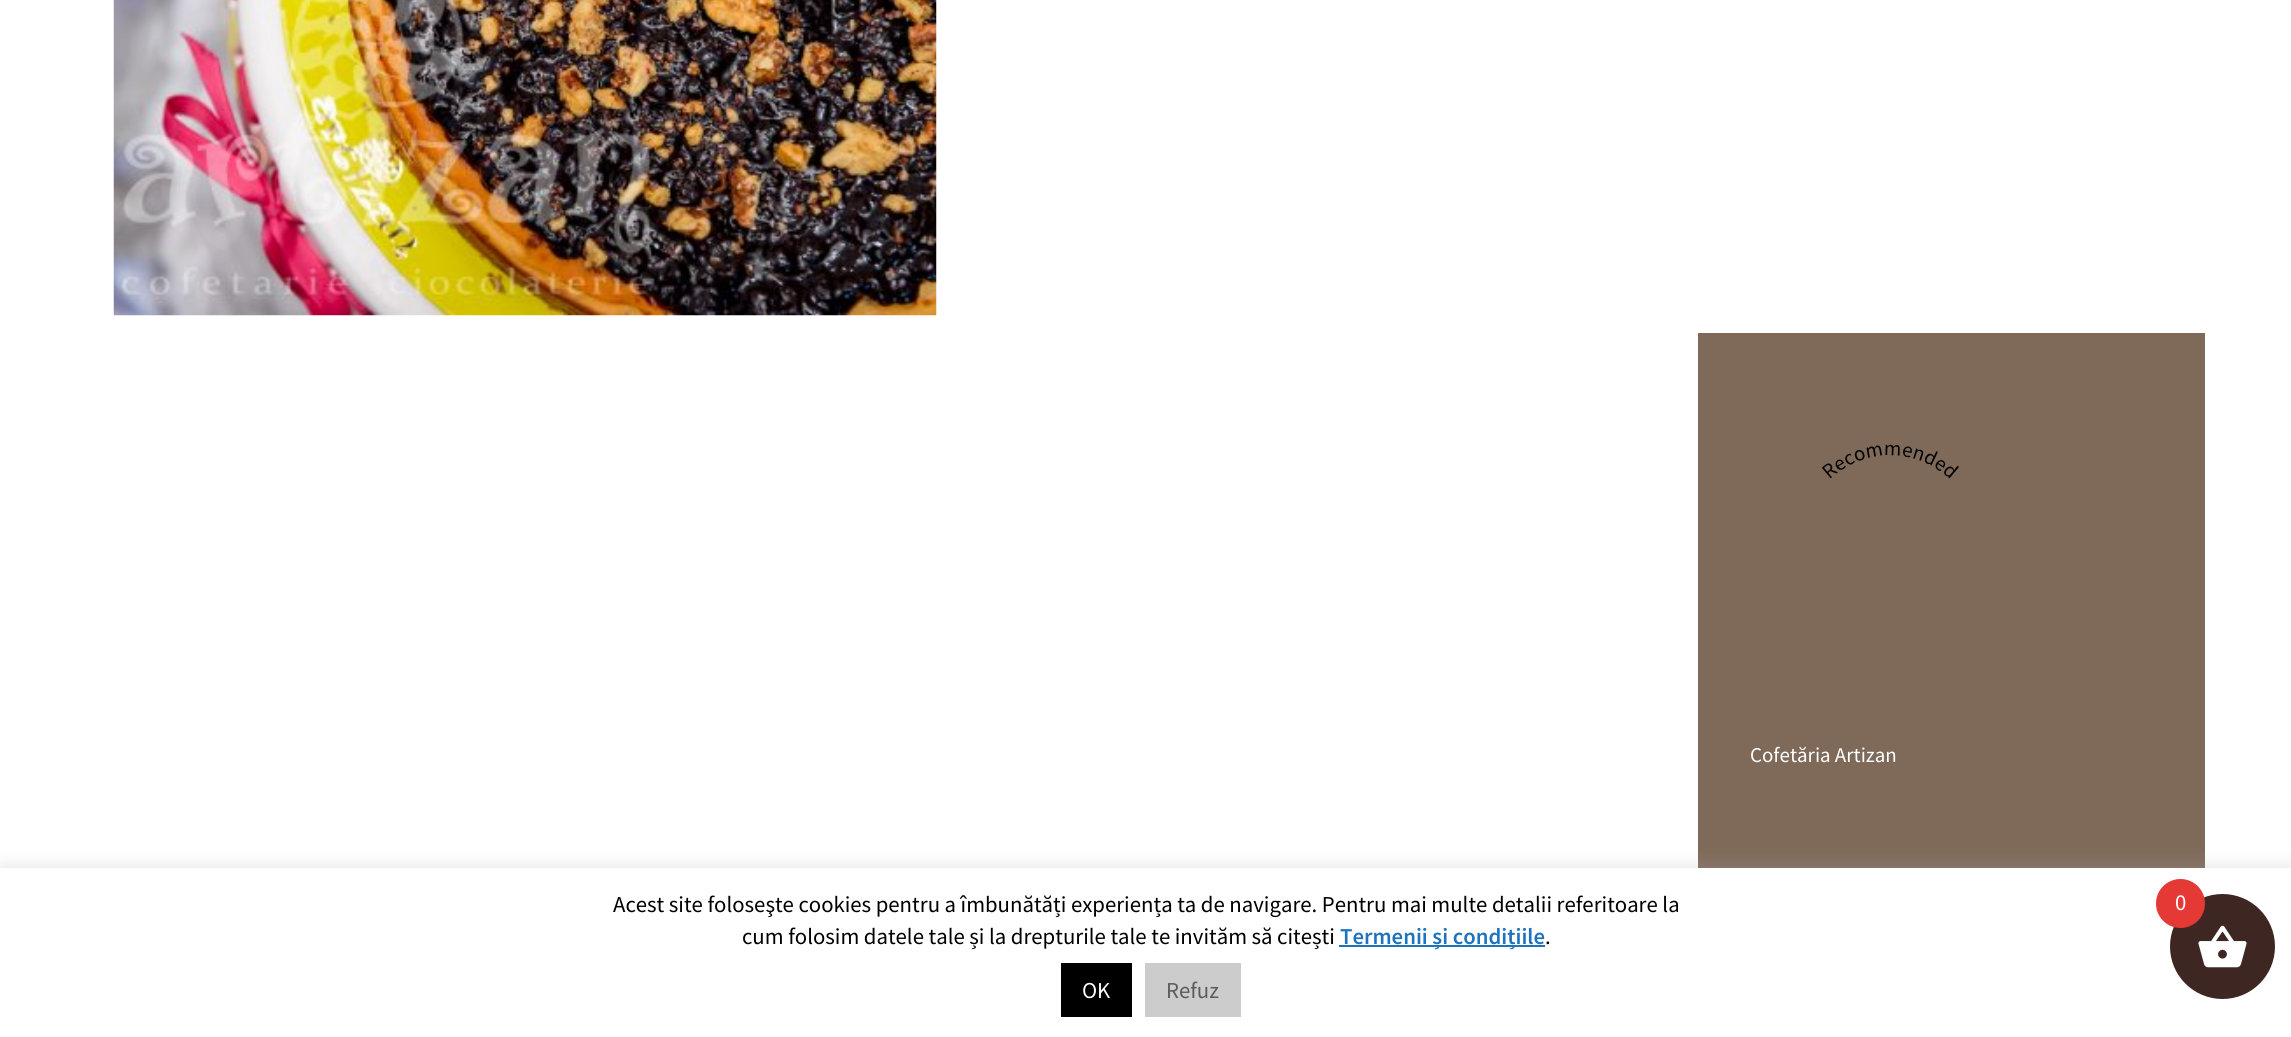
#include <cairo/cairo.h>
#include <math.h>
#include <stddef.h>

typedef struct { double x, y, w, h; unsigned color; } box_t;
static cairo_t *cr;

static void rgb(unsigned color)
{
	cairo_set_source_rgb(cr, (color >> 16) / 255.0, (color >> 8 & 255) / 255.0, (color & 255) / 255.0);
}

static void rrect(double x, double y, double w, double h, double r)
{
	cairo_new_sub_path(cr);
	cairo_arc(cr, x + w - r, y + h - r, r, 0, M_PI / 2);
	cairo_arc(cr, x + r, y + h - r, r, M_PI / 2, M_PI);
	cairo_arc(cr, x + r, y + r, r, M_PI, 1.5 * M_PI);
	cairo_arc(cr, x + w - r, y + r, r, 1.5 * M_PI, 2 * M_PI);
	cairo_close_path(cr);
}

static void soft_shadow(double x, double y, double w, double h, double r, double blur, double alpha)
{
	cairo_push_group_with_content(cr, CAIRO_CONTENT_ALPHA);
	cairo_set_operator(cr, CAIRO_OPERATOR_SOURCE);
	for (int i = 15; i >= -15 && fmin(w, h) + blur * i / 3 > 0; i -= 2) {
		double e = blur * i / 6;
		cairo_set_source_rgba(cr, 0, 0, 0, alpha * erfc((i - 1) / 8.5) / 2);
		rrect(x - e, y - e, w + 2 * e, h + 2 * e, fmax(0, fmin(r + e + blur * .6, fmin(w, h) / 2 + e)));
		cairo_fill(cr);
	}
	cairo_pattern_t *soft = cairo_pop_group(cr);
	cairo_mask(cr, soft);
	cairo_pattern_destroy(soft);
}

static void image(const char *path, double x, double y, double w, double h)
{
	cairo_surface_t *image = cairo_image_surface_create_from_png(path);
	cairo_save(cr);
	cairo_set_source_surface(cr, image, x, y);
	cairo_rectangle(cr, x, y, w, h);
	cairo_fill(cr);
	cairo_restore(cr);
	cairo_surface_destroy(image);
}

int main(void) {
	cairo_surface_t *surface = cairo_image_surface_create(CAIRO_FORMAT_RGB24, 2291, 1037);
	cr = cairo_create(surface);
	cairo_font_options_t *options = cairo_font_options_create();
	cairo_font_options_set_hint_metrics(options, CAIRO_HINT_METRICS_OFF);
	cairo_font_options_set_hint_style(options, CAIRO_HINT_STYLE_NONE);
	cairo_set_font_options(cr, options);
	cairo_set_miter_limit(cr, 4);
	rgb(0xffffff);
	cairo_paint(cr);
	rgb(0x7f6a5a);
	cairo_rectangle(cr, 1698, 333, 507, 535);
	cairo_fill(cr);
	image("img/1.png", 113, 0, 824, 316);
	image("img/2.png", 1822, 444, 137, 35);
	rgb(0xacabab);
	soft_shadow(0, 866, 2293, 170, 0, 9, 0.3);
	{
		static const box_t items[] = {
			{0, 868, 2291, 169, 0xffffff},
			{1339, 945, 206, 2, 0x1e73be},
			{1061, 963, 71, 54, 0x000000},
			{1145, 963, 96, 54, 0xcccccc},
		};
		for (size_t i = 0; i < sizeof items / sizeof *items; i++) {
			rgb(items[i].color);
			cairo_rectangle(cr, items[i].x, items[i].y, items[i].w, items[i].h);
			cairo_fill(cr);
		}
	}
	rgb(0x3e2723);
	cairo_arc(cr, 2222.5, 946.5, 52.5, 0, 2 * M_PI);
	cairo_fill(cr);
	image("img/3.png", 2198, 925, 49, 43);
	rgb(0xe53935);
	cairo_arc(cr, 2180.5, 903.5, 24.5, 0, 2 * M_PI);
	cairo_fill(cr);
	cairo_select_font_face(cr, "Source Sans Pro", CAIRO_FONT_SLANT_NORMAL, CAIRO_FONT_WEIGHT_NORMAL);
	cairo_set_font_size(cr, 21);
	rgb(0xffffff);
	cairo_move_to(cr, 1750, 762);
	cairo_show_text(cr, "Cofetăria Artizan");
	cairo_set_font_size(cr, 22.75);
	rgb(0x000000);
	cairo_move_to(cr, 613, 912);
	cairo_show_text(cr, "Acest site foloseşte cookies pentru a îmbunătăți experiența ta de navigare. Pentru mai multe detalii referitoare la");
	cairo_move_to(cr, 742, 944);
	cairo_show_text(cr, "cum folosim datele tale și la drepturile tale te invităm să citești");
	cairo_select_font_face(cr, "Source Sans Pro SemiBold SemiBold", CAIRO_FONT_SLANT_NORMAL, CAIRO_FONT_WEIGHT_NORMAL);
	rgb(0x1e73be);
	cairo_move_to(cr, 1340, 944);
	cairo_show_text(cr, "Termenii și condițiile");
	cairo_select_font_face(cr, "Source Sans Pro", CAIRO_FONT_SLANT_NORMAL, CAIRO_FONT_WEIGHT_NORMAL);
	rgb(0x000000);
	cairo_move_to(cr, 1545, 944);
	cairo_show_text(cr, ".");
	rgb(0xffffff);
	cairo_move_to(cr, 1082, 998);
	cairo_show_text(cr, "OK");
	rgb(0x5b5b5b);
	cairo_move_to(cr, 1166, 998);
	cairo_show_text(cr, "Refuz");
	rgb(0xffffff);
	cairo_move_to(cr, 2175, 910);
	cairo_show_text(cr, "0");
	cairo_surface_write_to_png(surface, "page.png");
	cairo_font_options_destroy(options);
	cairo_destroy(cr);
	cairo_surface_destroy(surface);
	return 0;
}
